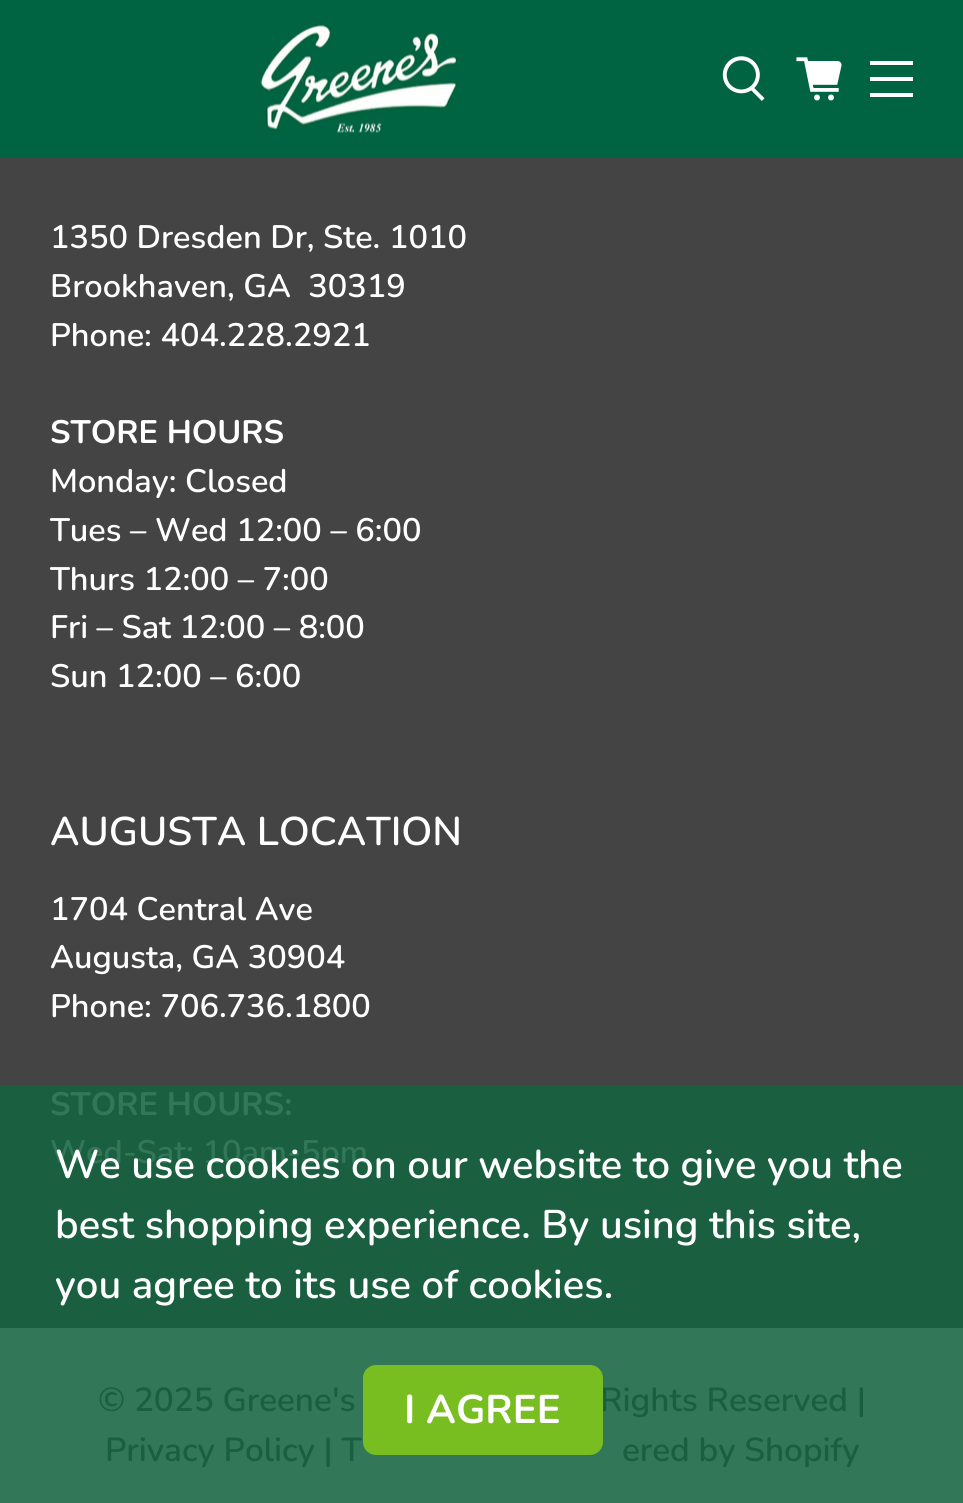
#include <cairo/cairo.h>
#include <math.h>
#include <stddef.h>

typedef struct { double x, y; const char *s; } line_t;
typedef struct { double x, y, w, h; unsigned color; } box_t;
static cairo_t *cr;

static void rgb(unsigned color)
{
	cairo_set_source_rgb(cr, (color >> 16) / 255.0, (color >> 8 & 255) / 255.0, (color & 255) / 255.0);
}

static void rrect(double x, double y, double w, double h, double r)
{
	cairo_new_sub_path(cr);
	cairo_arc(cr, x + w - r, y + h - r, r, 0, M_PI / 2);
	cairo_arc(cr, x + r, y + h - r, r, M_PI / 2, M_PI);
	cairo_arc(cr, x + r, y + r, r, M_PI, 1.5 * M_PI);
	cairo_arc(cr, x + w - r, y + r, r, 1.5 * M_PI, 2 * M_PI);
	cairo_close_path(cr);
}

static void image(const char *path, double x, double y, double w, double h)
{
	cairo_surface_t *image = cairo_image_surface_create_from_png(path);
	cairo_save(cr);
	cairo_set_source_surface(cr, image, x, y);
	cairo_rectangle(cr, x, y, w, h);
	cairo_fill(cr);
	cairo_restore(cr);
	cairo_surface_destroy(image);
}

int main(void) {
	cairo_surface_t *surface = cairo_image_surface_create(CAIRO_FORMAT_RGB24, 963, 1503);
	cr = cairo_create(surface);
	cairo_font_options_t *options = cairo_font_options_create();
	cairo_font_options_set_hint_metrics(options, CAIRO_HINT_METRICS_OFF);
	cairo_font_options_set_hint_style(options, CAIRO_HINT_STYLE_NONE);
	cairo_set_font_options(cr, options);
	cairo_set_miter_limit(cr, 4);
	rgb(0x317758);
	cairo_paint(cr);
	rgb(0x006341);
	cairo_rectangle(cr, 0, 0, 963, 158);
	cairo_fill(cr);
	image("img/1.png", 260, 24, 199, 109);
	image("img/2.png", 722, 56, 43, 45);
	image("img/3.png", 796, 57, 46, 44);
	{
		static const box_t items[] = {
			{870, 61, 43, 4, 0xffffff},
			{870, 77, 43, 4, 0xffffff},
			{870, 93, 43, 4, 0xffffff},
			{0, 158, 963, 927, 0x444444},
			{0, 1085, 963, 243, 0x195f40},
		};
		for (size_t i = 0; i < sizeof items / sizeof *items; i++) {
			rgb(items[i].color);
			cairo_rectangle(cr, items[i].x, items[i].y, items[i].w, items[i].h);
			cairo_fill(cr);
		}
	}
	cairo_select_font_face(cr, "Nunito SemiBold", CAIRO_FONT_SLANT_NORMAL, CAIRO_FONT_WEIGHT_NORMAL);
	cairo_set_font_size(cr, 32.5);
	rgb(0xffffff);
	{
		static const line_t items[] = {
			{50, 248, "1350 Dresden Dr, Ste. 1010"},
			{50, 297, "Brookhaven, GA  30319"},
			{50, 346, "Phone: 404.228.2921"},
		};
		for (size_t i = 0; i < sizeof items / sizeof *items; i++) {
			cairo_move_to(cr, items[i].x, items[i].y);
			cairo_show_text(cr, items[i].s);
		}
	}
	cairo_select_font_face(cr, "Nunito", CAIRO_FONT_SLANT_NORMAL, CAIRO_FONT_WEIGHT_BOLD);
	cairo_move_to(cr, 50, 443);
	cairo_show_text(cr, "STORE HOURS");
	cairo_select_font_face(cr, "Nunito SemiBold", CAIRO_FONT_SLANT_NORMAL, CAIRO_FONT_WEIGHT_NORMAL);
	{
		static const line_t items[] = {
			{50, 492, "Monday: Closed"},
			{50, 541, "Tues – Wed 12:00 – 6:00"},
			{50, 590, "Thurs 12:00 – 7:00"},
			{50, 638, "Fri – Sat 12:00 – 8:00"},
			{50, 687, "Sun 12:00 – 6:00"},
		};
		for (size_t i = 0; i < sizeof items / sizeof *items; i++) {
			cairo_move_to(cr, items[i].x, items[i].y);
			cairo_show_text(cr, items[i].s);
		}
	}
	cairo_set_font_size(cr, 40);
	cairo_move_to(cr, 50, 845);
	cairo_show_text(cr, "AUGUSTA LOCATION");
	cairo_set_font_size(cr, 32.5);
	{
		static const line_t items[] = {
			{50, 920, "1704 Central Ave"},
			{50, 968, "Augusta, GA 30904"},
			{50, 1017, "Phone: 706.736.1800"},
		};
		for (size_t i = 0; i < sizeof items / sizeof *items; i++) {
			cairo_move_to(cr, items[i].x, items[i].y);
			cairo_show_text(cr, items[i].s);
		}
	}
	cairo_select_font_face(cr, "Nunito", CAIRO_FONT_SLANT_NORMAL, CAIRO_FONT_WEIGHT_BOLD);
	rgb(0x317758);
	cairo_move_to(cr, 50, 1115);
	cairo_show_text(cr, "STORE HOURS:");
	cairo_select_font_face(cr, "Nunito SemiBold", CAIRO_FONT_SLANT_NORMAL, CAIRO_FONT_WEIGHT_NORMAL);
	cairo_move_to(cr, 50, 1163);
	cairo_show_text(cr, "Wed-Sat: 10am-5pm");
	cairo_set_font_size(cr, 33.25);
	rgb(0x195f40);
	{
		static const line_t items[] = {
			{98, 1411, "© 2025 Greene's"},
			{600, 1411, "Rights Reserved |"},
			{105, 1461, "Privacy Policy | T"},
			{622, 1461, "ered by Shopify"},
		};
		for (size_t i = 0; i < sizeof items / sizeof *items; i++) {
			cairo_move_to(cr, items[i].x, items[i].y);
			cairo_show_text(cr, items[i].s);
		}
	}
	cairo_set_font_size(cr, 40);
	rgb(0xffffff);
	{
		static const line_t items[] = {
			{55, 1178, "We use cookies on our website to give you the"},
			{55, 1238, "best shopping experience. By using this site,"},
			{55, 1298, "you agree to its use of cookies."},
		};
		for (size_t i = 0; i < sizeof items / sizeof *items; i++) {
			cairo_move_to(cr, items[i].x, items[i].y);
			cairo_show_text(cr, items[i].s);
		}
	}
	rgb(0x78be20);
	rrect(363, 1365, 240, 90, 13);
	cairo_fill(cr);
	cairo_select_font_face(cr, "Nunito", CAIRO_FONT_SLANT_NORMAL, CAIRO_FONT_WEIGHT_BOLD);
	rgb(0xffffff);
	cairo_move_to(cr, 404, 1423);
	cairo_show_text(cr, "I AGREE");
	cairo_surface_write_to_png(surface, "page.png");
	cairo_font_options_destroy(options);
	cairo_destroy(cr);
	cairo_surface_destroy(surface);
	return 0;
}
